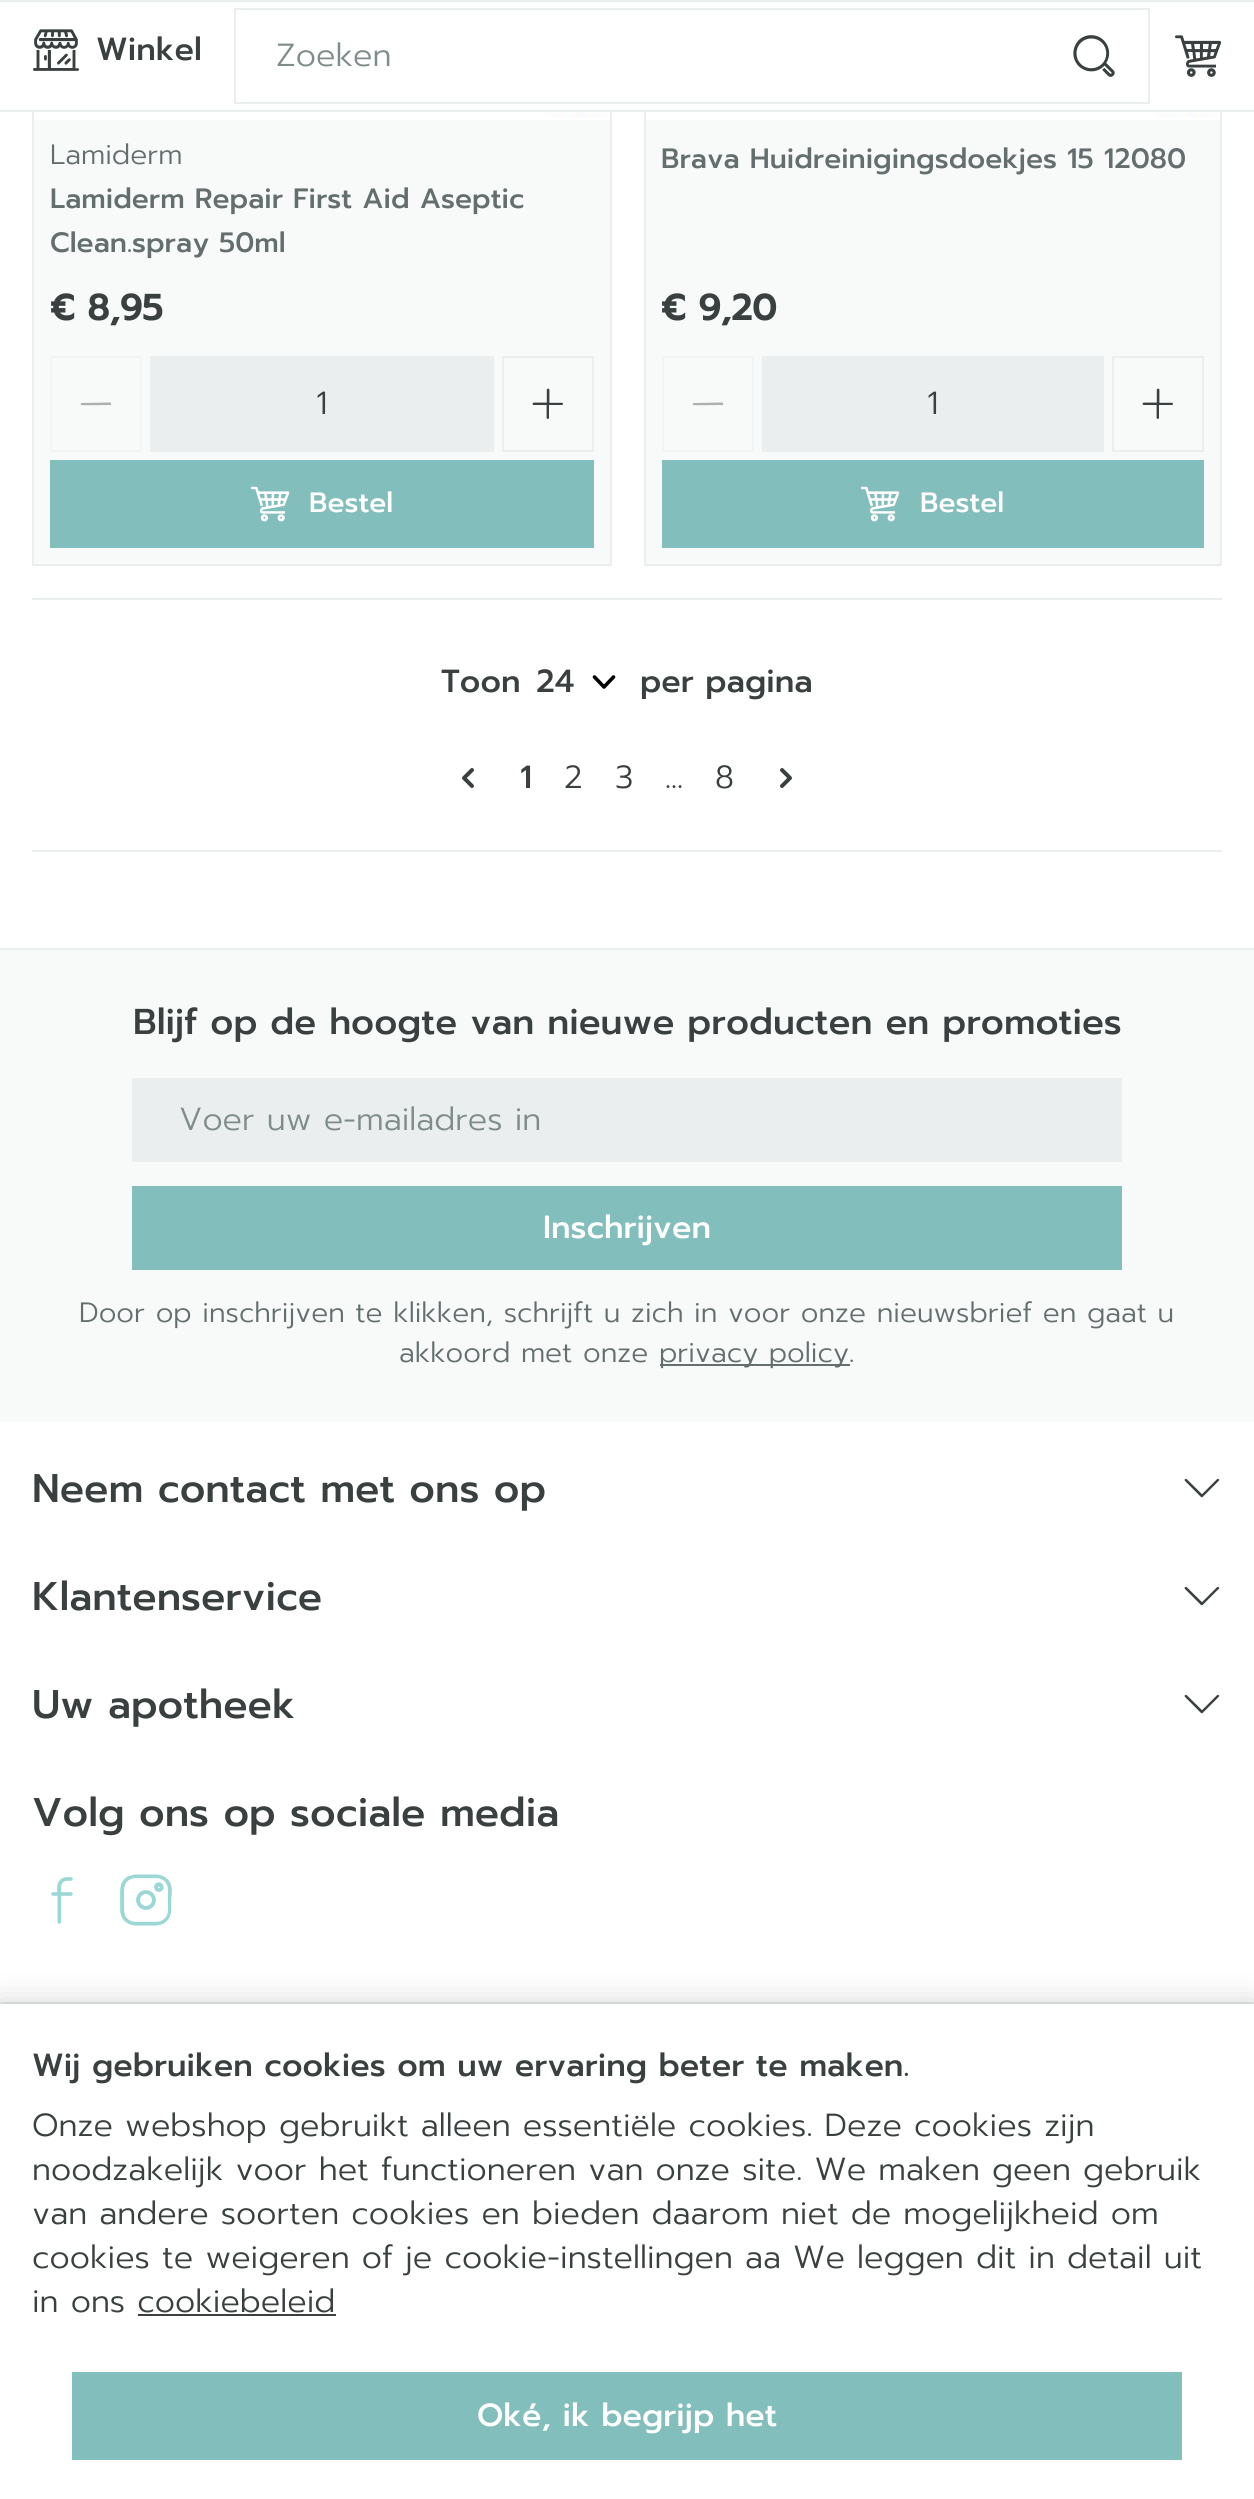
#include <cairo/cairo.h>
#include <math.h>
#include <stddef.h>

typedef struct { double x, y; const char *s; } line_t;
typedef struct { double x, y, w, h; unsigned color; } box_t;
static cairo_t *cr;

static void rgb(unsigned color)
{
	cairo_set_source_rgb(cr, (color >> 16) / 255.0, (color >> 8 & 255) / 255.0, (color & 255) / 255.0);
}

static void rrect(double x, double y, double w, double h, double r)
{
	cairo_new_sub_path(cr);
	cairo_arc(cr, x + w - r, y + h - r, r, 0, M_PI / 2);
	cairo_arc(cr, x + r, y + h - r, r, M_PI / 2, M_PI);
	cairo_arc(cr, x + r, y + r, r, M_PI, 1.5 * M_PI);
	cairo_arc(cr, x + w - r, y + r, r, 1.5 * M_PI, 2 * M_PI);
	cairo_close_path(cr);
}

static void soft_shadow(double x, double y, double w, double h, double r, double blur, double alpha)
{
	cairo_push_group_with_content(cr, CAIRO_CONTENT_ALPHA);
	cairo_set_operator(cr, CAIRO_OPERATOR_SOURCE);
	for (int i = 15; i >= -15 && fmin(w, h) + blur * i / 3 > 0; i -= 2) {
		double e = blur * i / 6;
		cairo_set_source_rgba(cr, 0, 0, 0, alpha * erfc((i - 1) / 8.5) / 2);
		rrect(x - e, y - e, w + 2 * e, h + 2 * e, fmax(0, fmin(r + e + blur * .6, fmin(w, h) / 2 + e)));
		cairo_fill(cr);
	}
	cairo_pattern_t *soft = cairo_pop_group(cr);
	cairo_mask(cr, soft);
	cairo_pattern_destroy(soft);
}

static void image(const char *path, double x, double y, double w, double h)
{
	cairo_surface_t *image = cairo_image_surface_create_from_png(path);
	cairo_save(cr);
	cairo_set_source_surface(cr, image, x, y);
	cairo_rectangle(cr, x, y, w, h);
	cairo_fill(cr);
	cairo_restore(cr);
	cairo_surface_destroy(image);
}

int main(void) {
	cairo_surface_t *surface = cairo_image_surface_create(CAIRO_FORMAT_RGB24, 1254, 2499);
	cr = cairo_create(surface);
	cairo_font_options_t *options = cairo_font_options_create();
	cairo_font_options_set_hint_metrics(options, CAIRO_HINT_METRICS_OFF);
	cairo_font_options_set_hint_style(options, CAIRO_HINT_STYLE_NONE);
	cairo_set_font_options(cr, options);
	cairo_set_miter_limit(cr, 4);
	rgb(0xffffff);
	cairo_paint(cr);
	cairo_rectangle(cr, 33, -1, 578, 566);
	rgb(0xeaeeee);
	cairo_stroke(cr);
	cairo_rectangle(cr, 645, -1, 576, 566);
	cairo_stroke(cr);
	{
		static const box_t items[] = {
			{32, 2, 1190, 108, 0xffffff},
			{0, 0, 1254, 2, 0xeaeeee},
			{0, 110, 1254, 2, 0xeaeeee},
		};
		for (size_t i = 0; i < sizeof items / sizeof *items; i++) {
			rgb(items[i].color);
			cairo_rectangle(cr, items[i].x, items[i].y, items[i].w, items[i].h);
			cairo_fill(cr);
		}
	}
	image("img/1.png", 33, 29, 46, 42);
	cairo_rectangle(cr, 235, 9, 914, 94);
	cairo_stroke(cr);
	image("img/2.png", 1073, 35, 42, 42);
	image("img/3.png", 1175, 35, 47, 42);
	cairo_rectangle(cr, 32, 850, 1190, 2);
	cairo_fill(cr);
	cairo_rectangle(cr, 32, 598, 1190, 2);
	cairo_fill(cr);
	image("img/4.png", 174, 112, 434, 6);
	rgb(0xf8fafa);
	cairo_rectangle(cr, 34, 120, 576, 444);
	cairo_fill(cr);
	cairo_rectangle(cr, 51, 357, 90, 94);
	rgb(0xf2f5f5);
	cairo_stroke(cr);
	rgb(0xacb0b0);
	cairo_new_path(cr);
	cairo_move_to(cr, 110, 405);
	cairo_curve_to(cr, 107, 405, 82, 405.5, 81, 405);
	cairo_curve_to(cr, 80.5, 404.5, 80.5, 403.5, 81.5, 403);
	cairo_line_to(cr, 110.5, 402.5);
	cairo_curve_to(cr, 111.5, 403, 111.5, 405.5, 110, 405);
	cairo_close_path(cr);
	cairo_fill(cr);
	rgb(0xeaeeee);
	cairo_rectangle(cr, 150, 356, 344, 96);
	cairo_fill(cr);
	cairo_rectangle(cr, 503, 357, 90, 94);
	cairo_stroke(cr);
	image("img/5.png", 532, 388, 31, 31);
	rgb(0x82bebb);
	cairo_rectangle(cr, 50, 460, 544, 88);
	cairo_fill(cr);
	image("img/6.png", 250, 486, 40, 36);
	image("img/7.png", 1155, 112, 63, 6);
	rgb(0xf8fafa);
	cairo_rectangle(cr, 646, 120, 574, 444);
	cairo_fill(cr);
	cairo_rectangle(cr, 663, 357, 90, 94);
	rgb(0xf2f5f5);
	cairo_stroke(cr);
	rgb(0xacb0b0);
	cairo_new_path(cr);
	cairo_move_to(cr, 722, 405);
	cairo_curve_to(cr, 719, 405, 694, 405.5, 693, 405);
	cairo_curve_to(cr, 692.5, 404.5, 692.5, 403.5, 693.5, 403);
	cairo_line_to(cr, 722.5, 402.5);
	cairo_curve_to(cr, 723.5, 403, 723.5, 405.5, 722, 405);
	cairo_close_path(cr);
	cairo_fill(cr);
	rgb(0xeaeeee);
	cairo_rectangle(cr, 762, 356, 342, 96);
	cairo_fill(cr);
	cairo_rectangle(cr, 1113, 357, 90, 94);
	cairo_stroke(cr);
	image("img/5.png", 1142, 388, 31, 31);
	rgb(0x82bebb);
	cairo_rectangle(cr, 662, 460, 542, 88);
	cairo_fill(cr);
	image("img/6.png", 860, 486, 40, 36);
	cairo_new_path(cr);
	cairo_move_to(cr, 594.5, 677);
	cairo_line_to(cr, 604, 687);
	cairo_line_to(cr, 613.5, 677);
	rgb(0x000000);
	cairo_set_line_width(cr, 3.6);
	cairo_set_line_cap(cr, CAIRO_LINE_CAP_ROUND);
	cairo_set_line_join(cr, CAIRO_LINE_JOIN_ROUND);
	cairo_stroke(cr);
	image("img/8.png", 462, 768, 12, 20);
	image("img/9.png", 780, 768, 12, 20);
	{
		static const box_t items[] = {
			{0, 948, 1254, 2, 0xeaeeee},
			{0, 950, 1254, 472, 0xf8fafa},
			{132, 1078, 990, 84, 0xeaeeee},
			{132, 1186, 990, 84, 0x82bebb},
			{660, 1364, 190, 2, 0x646e6e},
		};
		for (size_t i = 0; i < sizeof items / sizeof *items; i++) {
			rgb(items[i].color);
			cairo_rectangle(cr, items[i].x, items[i].y, items[i].w, items[i].h);
			cairo_fill(cr);
		}
	}
	image("img/10.png", 1184, 1478, 36, 20);
	image("img/10.png", 1184, 1586, 36, 20);
	image("img/10.png", 1184, 1694, 36, 20);
	image("img/11.png", 51, 1877, 22, 47);
	image("img/12.png", 120, 1874, 52, 52);
	rgb(0xeaeeee);
	cairo_rectangle(cr, 0, 2002, 1254, 2);
	cairo_fill(cr);
	rgb(0x000000);
	soft_shadow(0, 2004, 1254, 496, 0, 15, 0.2);
	{
		static const box_t items[] = {
			{0, 2004, 1254, 495, 0xffffff},
			{138, 2314, 198, 2, 0x3a4040},
			{72, 2372, 1110, 88, 0x82bebb},
		};
		for (size_t i = 0; i < sizeof items / sizeof *items; i++) {
			rgb(items[i].color);
			cairo_rectangle(cr, items[i].x, items[i].y, items[i].w, items[i].h);
			cairo_fill(cr);
		}
	}
	cairo_select_font_face(cr, "Prompt Medium", CAIRO_FONT_SLANT_NORMAL, CAIRO_FONT_WEIGHT_NORMAL);
	cairo_set_font_size(cr, 32);
	rgb(0x3a4040);
	cairo_move_to(cr, 96, 60);
	cairo_show_text(cr, "Winkel");
	cairo_select_font_face(cr, "Prompt Light", CAIRO_FONT_SLANT_NORMAL, CAIRO_FONT_WEIGHT_NORMAL);
	rgb(0x7f8c8b);
	cairo_move_to(cr, 276, 66);
	cairo_show_text(cr, "Zoeken");
	cairo_set_font_size(cr, 28);
	rgb(0x646e6e);
	cairo_move_to(cr, 50, 164);
	cairo_show_text(cr, "Lamiderm");
	cairo_select_font_face(cr, "Prompt Medium", CAIRO_FONT_SLANT_NORMAL, CAIRO_FONT_WEIGHT_NORMAL);
	cairo_move_to(cr, 50, 208);
	cairo_show_text(cr, "Lamiderm Repair First Aid Aseptic");
	cairo_move_to(cr, 50, 252);
	cairo_show_text(cr, "Clean.spray 50ml");
	cairo_select_font_face(cr, "Prompt", CAIRO_FONT_SLANT_NORMAL, CAIRO_FONT_WEIGHT_BOLD);
	cairo_set_font_size(cr, 36);
	rgb(0x3a4040);
	cairo_move_to(cr, 50, 320);
	cairo_show_text(cr, "€ 8,95");
	cairo_select_font_face(cr, "Prompt Light", CAIRO_FONT_SLANT_NORMAL, CAIRO_FONT_WEIGHT_NORMAL);
	cairo_set_font_size(cr, 32);
	cairo_move_to(cr, 316, 414);
	cairo_show_text(cr, "1");
	cairo_select_font_face(cr, "Prompt Medium", CAIRO_FONT_SLANT_NORMAL, CAIRO_FONT_WEIGHT_NORMAL);
	cairo_set_font_size(cr, 28);
	rgb(0xffffff);
	cairo_move_to(cr, 309, 512);
	cairo_show_text(cr, "Bestel");
	rgb(0x646e6e);
	cairo_move_to(cr, 661, 168);
	cairo_show_text(cr, "Brava Huidreinigingsdoekjes 15 12080");
	cairo_select_font_face(cr, "Prompt", CAIRO_FONT_SLANT_NORMAL, CAIRO_FONT_WEIGHT_BOLD);
	cairo_set_font_size(cr, 36);
	rgb(0x3a4040);
	cairo_move_to(cr, 661, 320);
	cairo_show_text(cr, "€ 9,20");
	cairo_select_font_face(cr, "Prompt Light", CAIRO_FONT_SLANT_NORMAL, CAIRO_FONT_WEIGHT_NORMAL);
	cairo_set_font_size(cr, 32);
	cairo_move_to(cr, 927, 414);
	cairo_show_text(cr, "1");
	cairo_select_font_face(cr, "Prompt Medium", CAIRO_FONT_SLANT_NORMAL, CAIRO_FONT_WEIGHT_NORMAL);
	cairo_set_font_size(cr, 28);
	rgb(0xffffff);
	cairo_move_to(cr, 920, 512);
	cairo_show_text(cr, "Bestel");
	cairo_set_font_size(cr, 32);
	rgb(0x3a4040);
	{
		static const line_t items[] = {
			{441, 692, "Toon"},
			{536, 692, "24"},
			{640, 692, "per pagina"},
			{520, 788, "1"},
		};
		for (size_t i = 0; i < sizeof items / sizeof *items; i++) {
			cairo_move_to(cr, items[i].x, items[i].y);
			cairo_show_text(cr, items[i].s);
		}
	}
	cairo_select_font_face(cr, "Prompt Light", CAIRO_FONT_SLANT_NORMAL, CAIRO_FONT_WEIGHT_NORMAL);
	{
		static const line_t items[] = {
			{564, 788, "2"},
			{615, 788, "3"},
			{665, 788, "..."},
			{715, 788, "8"},
		};
		for (size_t i = 0; i < sizeof items / sizeof *items; i++) {
			cairo_move_to(cr, items[i].x, items[i].y);
			cairo_show_text(cr, items[i].s);
		}
	}
	cairo_select_font_face(cr, "Prompt Medium", CAIRO_FONT_SLANT_NORMAL, CAIRO_FONT_WEIGHT_NORMAL);
	cairo_set_font_size(cr, 36);
	cairo_move_to(cr, 133, 1034);
	cairo_show_text(cr, "Blijf op de hoogte van nieuwe producten en promoties");
	cairo_select_font_face(cr, "Prompt Light", CAIRO_FONT_SLANT_NORMAL, CAIRO_FONT_WEIGHT_NORMAL);
	cairo_set_font_size(cr, 32);
	rgb(0x7f8c8b);
	cairo_move_to(cr, 179, 1130);
	cairo_show_text(cr, "Voer uw e-mailadres in");
	cairo_select_font_face(cr, "Prompt Medium", CAIRO_FONT_SLANT_NORMAL, CAIRO_FONT_WEIGHT_NORMAL);
	rgb(0xffffff);
	cairo_move_to(cr, 543, 1238);
	cairo_show_text(cr, "Inschrijven");
	cairo_select_font_face(cr, "Prompt Light", CAIRO_FONT_SLANT_NORMAL, CAIRO_FONT_WEIGHT_NORMAL);
	cairo_set_font_size(cr, 28);
	rgb(0x646e6e);
	{
		static const line_t items[] = {
			{79, 1322, "Door op inschrijven te klikken, schrijft u zich in voor onze nieuwsbrief en gaat u"},
			{399, 1362, "akkoord met onze"},
			{659, 1362, "privacy policy."},
		};
		for (size_t i = 0; i < sizeof items / sizeof *items; i++) {
			cairo_move_to(cr, items[i].x, items[i].y);
			cairo_show_text(cr, items[i].s);
		}
	}
	cairo_select_font_face(cr, "Prompt Medium", CAIRO_FONT_SLANT_NORMAL, CAIRO_FONT_WEIGHT_NORMAL);
	cairo_set_font_size(cr, 40);
	rgb(0x3a4040);
	{
		static const line_t items[] = {
			{32, 1502, "Neem contact met ons op"},
			{32, 1610, "Klantenservice"},
			{32, 1718, "Uw apotheek"},
			{32, 1826, "Volg ons op sociale media"},
		};
		for (size_t i = 0; i < sizeof items / sizeof *items; i++) {
			cairo_move_to(cr, items[i].x, items[i].y);
			cairo_show_text(cr, items[i].s);
		}
	}
	cairo_set_font_size(cr, 32);
	cairo_move_to(cr, 32, 2076);
	cairo_show_text(cr, "Wij gebruiken cookies om uw ervaring beter te maken.");
	cairo_select_font_face(cr, "Prompt Light", CAIRO_FONT_SLANT_NORMAL, CAIRO_FONT_WEIGHT_NORMAL);
	{
		static const line_t items[] = {
			{32, 2136, "Onze webshop gebruikt alleen essentiële cookies. Deze cookies zijn"},
			{32, 2180, "noodzakelijk voor het functioneren van onze site. We maken geen gebruik"},
			{32, 2224, "van andere soorten cookies en bieden daarom niet de mogelijkheid om"},
			{32, 2268, "cookies te weigeren of je cookie-instellingen aa We leggen dit in detail uit"},
			{32, 2312, "in ons cookiebeleid"},
		};
		for (size_t i = 0; i < sizeof items / sizeof *items; i++) {
			cairo_move_to(cr, items[i].x, items[i].y);
			cairo_show_text(cr, items[i].s);
		}
	}
	cairo_select_font_face(cr, "Prompt Medium", CAIRO_FONT_SLANT_NORMAL, CAIRO_FONT_WEIGHT_NORMAL);
	rgb(0xffffff);
	cairo_move_to(cr, 477, 2426);
	cairo_show_text(cr, "Oké, ik begrijp het");
	cairo_surface_write_to_png(surface, "page.png");
	cairo_font_options_destroy(options);
	cairo_destroy(cr);
	cairo_surface_destroy(surface);
	return 0;
}
